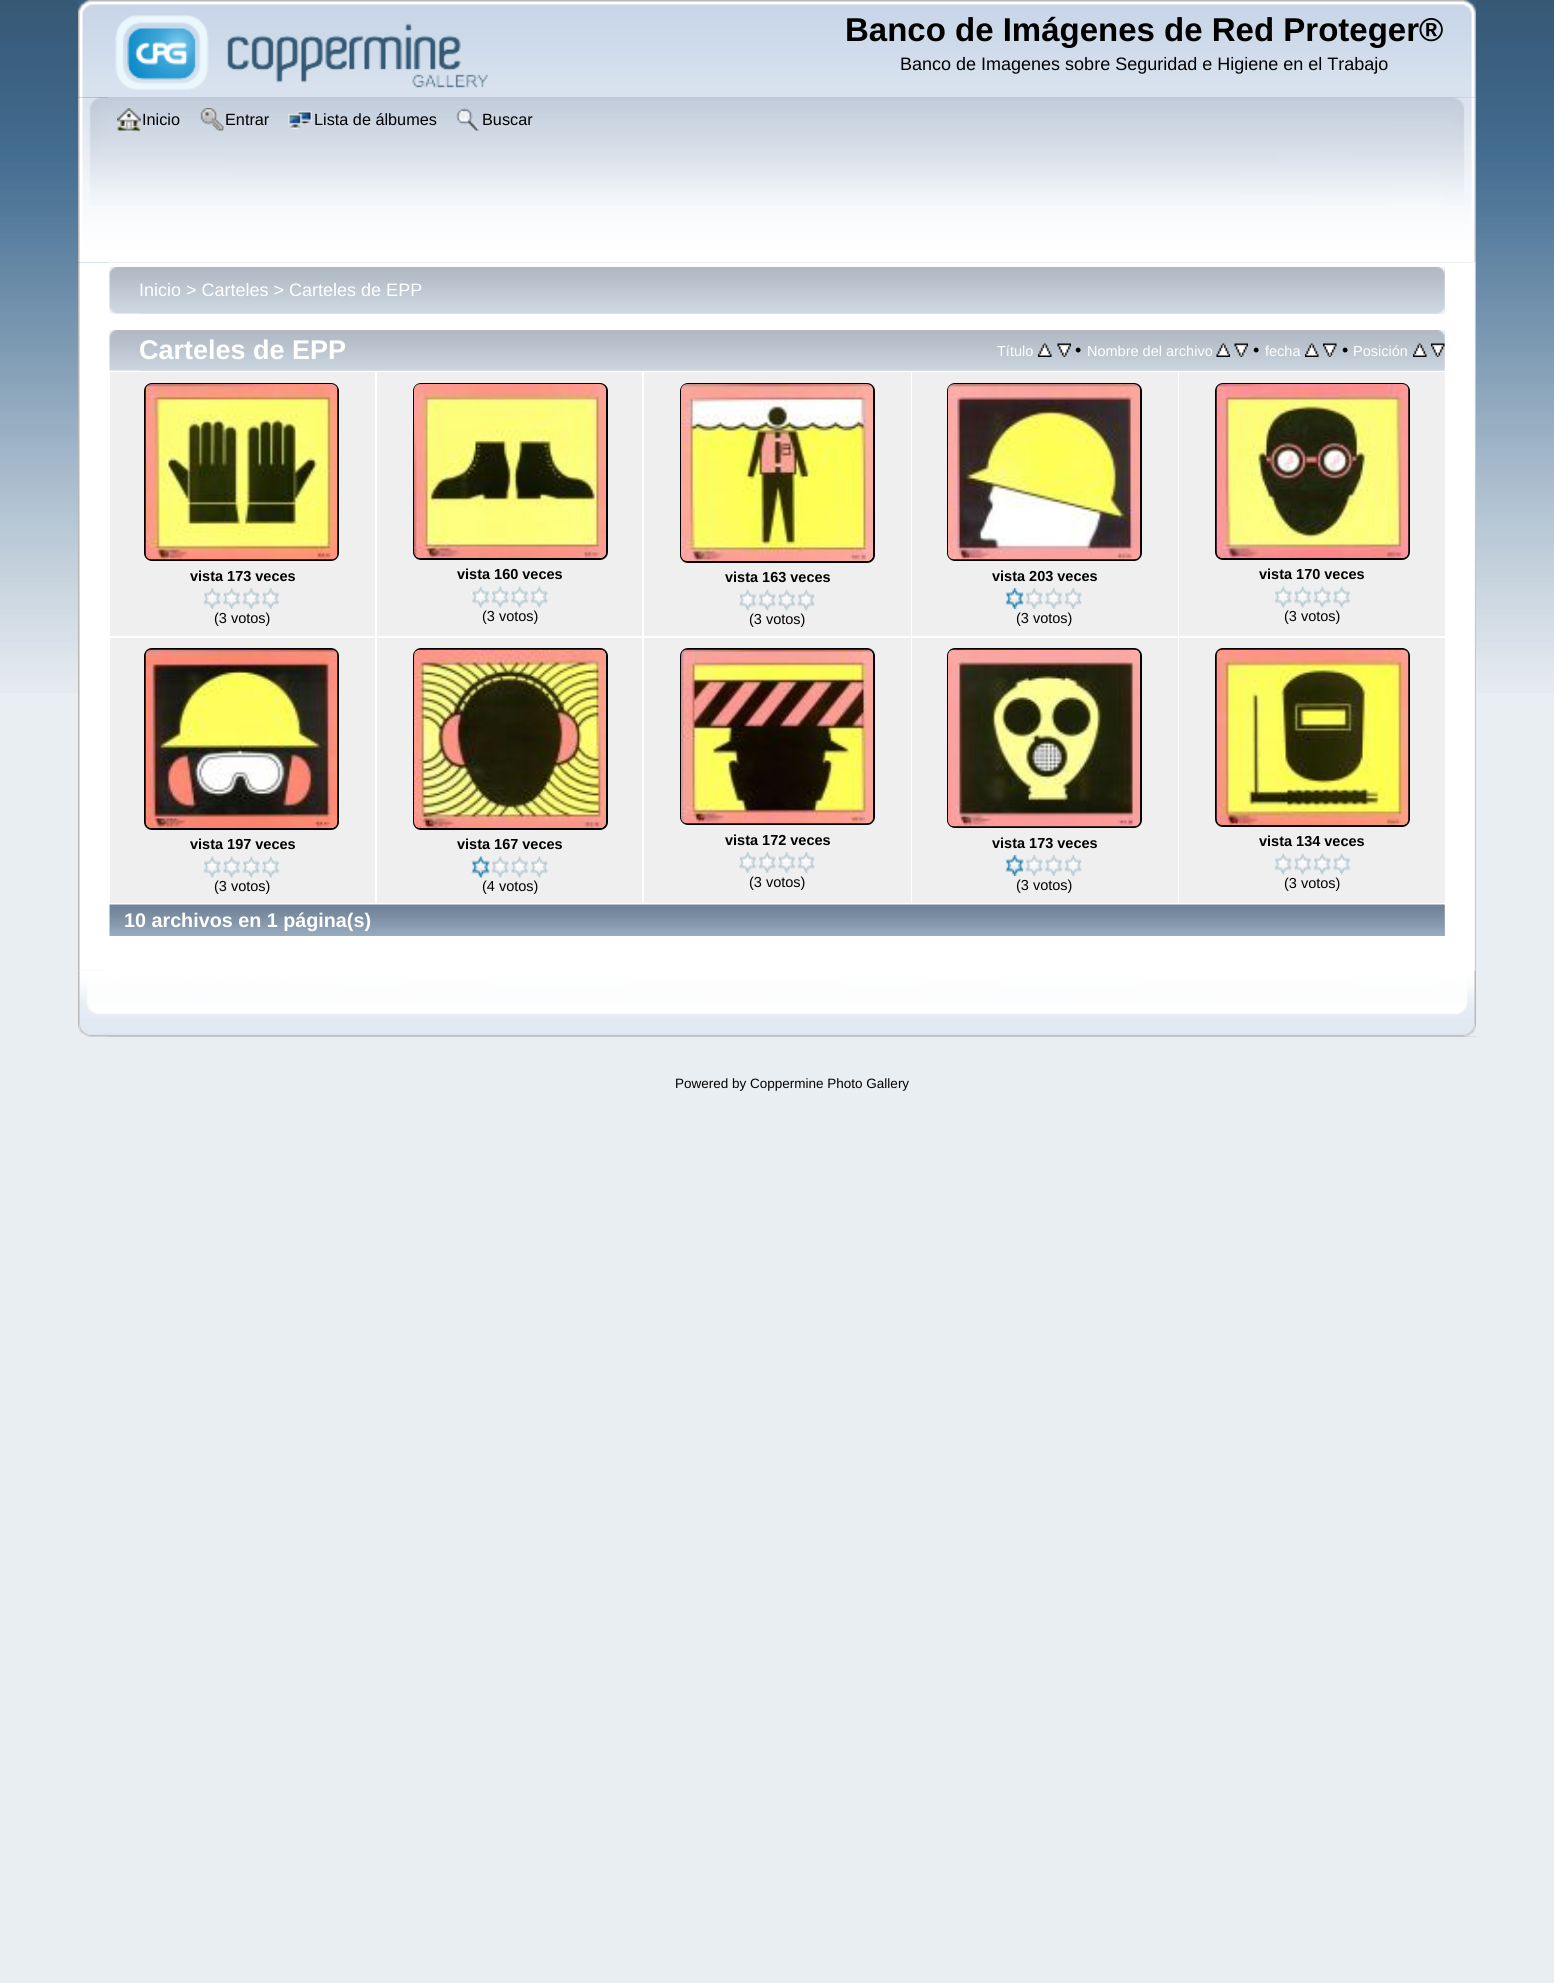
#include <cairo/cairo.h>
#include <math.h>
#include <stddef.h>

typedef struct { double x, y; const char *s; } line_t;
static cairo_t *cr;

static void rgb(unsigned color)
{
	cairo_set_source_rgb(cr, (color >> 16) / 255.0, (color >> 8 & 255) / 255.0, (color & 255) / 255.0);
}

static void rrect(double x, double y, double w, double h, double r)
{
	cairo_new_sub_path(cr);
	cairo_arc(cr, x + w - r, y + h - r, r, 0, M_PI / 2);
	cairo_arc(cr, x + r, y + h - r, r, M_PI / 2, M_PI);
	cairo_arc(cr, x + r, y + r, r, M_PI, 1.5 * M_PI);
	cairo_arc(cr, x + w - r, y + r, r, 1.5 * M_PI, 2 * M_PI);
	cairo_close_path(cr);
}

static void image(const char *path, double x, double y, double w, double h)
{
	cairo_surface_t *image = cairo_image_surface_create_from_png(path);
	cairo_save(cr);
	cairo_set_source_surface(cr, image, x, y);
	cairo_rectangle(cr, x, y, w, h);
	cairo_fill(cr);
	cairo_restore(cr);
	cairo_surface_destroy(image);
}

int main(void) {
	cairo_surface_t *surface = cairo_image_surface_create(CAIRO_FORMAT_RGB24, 1554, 1983);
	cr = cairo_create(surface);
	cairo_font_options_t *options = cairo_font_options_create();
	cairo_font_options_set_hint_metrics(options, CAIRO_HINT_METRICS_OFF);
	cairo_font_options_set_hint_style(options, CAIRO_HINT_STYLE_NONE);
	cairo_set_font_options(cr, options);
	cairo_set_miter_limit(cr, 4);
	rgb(0xe9eef2);
	cairo_paint(cr);
	image("img/1.png", 0, 0, 1554, 693);
	image("img/2.png", 78, 0, 1398, 98);
	image("img/3.png", 108, 0, 1368, 98);
	image("img/4.png", 115, 15, 373, 75);
	image("img/5.png", 78, 97, 1398, 166);
	image("img/6.png", 108, 97, 1368, 166);
	image("img/7.png", 117, 108, 24, 24);
	image("img/8.png", 200, 108, 24, 23);
	image("img/9.png", 288, 111, 24, 19);
	image("img/10.png", 456, 108, 24, 23);
	image("img/11.png", 78, 262, 1398, 709);
	image("img/12.png", 1474, 262, 2, 709);
	image("img/13.png", 109, 267, 1336, 47);
	image("img/14.png", 139, 267, 1306, 47);
	image("img/15.png", 109, 330, 1336, 41);
	image("img/16.png", 139, 330, 1306, 41);
	image("img/17.png", 1038, 343, 14, 14);
	image("img/18.png", 1057, 343, 14, 14);
	image("img/19.png", 1216, 343, 14, 14);
	image("img/20.png", 1234, 343, 14, 14);
	image("img/21.png", 1305, 343, 14, 14);
	image("img/22.png", 1323, 343, 14, 14);
	image("img/21.png", 1413, 343, 14, 14);
	image("img/23.png", 1431, 343, 14, 14);
	rgb(0xefefef);
	cairo_rectangle(cr, 110, 372, 265, 264);
	cairo_fill(cr);
	rrect(145, 384, 193, 176, 7);
	rgb(0x000000);
	cairo_stroke(cr);
	image("img/24.png", 145, 384, 193, 176);
	image("img/25.png", 202, 588, 20, 21);
	image("img/26.png", 222, 588, 19, 21);
	image("img/25.png", 241, 588, 20, 21);
	image("img/27.png", 261, 588, 19, 21);
	rgb(0xefefef);
	cairo_rectangle(cr, 377, 372, 265, 264);
	cairo_fill(cr);
	rrect(414, 384, 193, 175, 7);
	rgb(0x000000);
	cairo_stroke(cr);
	image("img/28.png", 414, 384, 192, 174);
	image("img/29.png", 471, 586, 19, 22);
	image("img/30.png", 490, 586, 20, 22);
	image("img/31.png", 510, 586, 19, 22);
	image("img/32.png", 529, 586, 20, 22);
	rgb(0xefefef);
	cairo_rectangle(cr, 644, 372, 267, 264);
	cairo_fill(cr);
	rrect(681, 384, 193, 178, 7);
	rgb(0x000000);
	cairo_stroke(cr);
	image("img/33.png", 681, 384, 192, 177);
	image("img/29.png", 738, 589, 19, 22);
	image("img/34.png", 757, 589, 20, 22);
	image("img/31.png", 777, 589, 19, 22);
	image("img/30.png", 796, 589, 20, 22);
	rgb(0xefefef);
	cairo_rectangle(cr, 912, 372, 266, 264);
	cairo_fill(cr);
	rrect(948, 384, 193, 176, 7);
	rgb(0x000000);
	cairo_stroke(cr);
	image("img/35.png", 948, 384, 192, 176);
	image("img/36.png", 1005, 588, 20, 21);
	image("img/37.png", 1024, 588, 20, 21);
	image("img/38.png", 1044, 588, 19, 21);
	image("img/25.png", 1063, 588, 20, 21);
	rgb(0xefefef);
	cairo_rectangle(cr, 1179, 372, 266, 264);
	cairo_fill(cr);
	rrect(1216, 384, 193, 175, 7);
	rgb(0x000000);
	cairo_stroke(cr);
	image("img/39.png", 1216, 384, 193, 174);
	image("img/34.png", 1273, 586, 20, 22);
	image("img/40.png", 1293, 586, 19, 22);
	image("img/32.png", 1312, 586, 20, 22);
	image("img/29.png", 1332, 586, 19, 22);
	rgb(0xefefef);
	cairo_rectangle(cr, 110, 638, 265, 265);
	cairo_fill(cr);
	rrect(145, 649, 193, 180, 7);
	rgb(0x000000);
	cairo_stroke(cr);
	image("img/41.png", 145, 649, 193, 179);
	image("img/30.png", 202, 856, 20, 22);
	image("img/31.png", 222, 856, 19, 22);
	image("img/30.png", 241, 856, 20, 22);
	image("img/40.png", 261, 856, 19, 22);
	rgb(0xefefef);
	cairo_rectangle(cr, 377, 638, 265, 265);
	cairo_fill(cr);
	rrect(414, 649, 193, 180, 7);
	rgb(0x000000);
	cairo_stroke(cr);
	image("img/42.png", 414, 649, 192, 179);
	image("img/43.png", 471, 856, 20, 22);
	image("img/44.png", 490, 856, 20, 22);
	image("img/31.png", 510, 856, 19, 22);
	image("img/32.png", 529, 856, 20, 22);
	rgb(0xefefef);
	cairo_rectangle(cr, 644, 638, 267, 265);
	cairo_fill(cr);
	rrect(681, 649, 193, 175, 7);
	rgb(0x000000);
	cairo_stroke(cr);
	image("img/45.png", 681, 649, 192, 175);
	image("img/38.png", 738, 852, 19, 21);
	image("img/46.png", 757, 852, 20, 21);
	image("img/26.png", 777, 852, 19, 21);
	image("img/25.png", 796, 852, 20, 21);
	rgb(0xefefef);
	cairo_rectangle(cr, 912, 638, 266, 265);
	cairo_fill(cr);
	rrect(948, 649, 193, 178, 7);
	rgb(0x000000);
	cairo_stroke(cr);
	image("img/47.png", 948, 649, 192, 178);
	image("img/36.png", 1005, 855, 20, 21);
	image("img/37.png", 1024, 855, 20, 21);
	image("img/38.png", 1044, 855, 19, 21);
	image("img/25.png", 1063, 855, 20, 21);
	rgb(0xefefef);
	cairo_rectangle(cr, 1179, 638, 266, 265);
	cairo_fill(cr);
	rrect(1216, 649, 193, 177, 7);
	rgb(0x000000);
	cairo_stroke(cr);
	image("img/48.png", 1216, 649, 193, 176);
	image("img/34.png", 1273, 853, 20, 22);
	image("img/40.png", 1293, 853, 19, 22);
	image("img/32.png", 1312, 853, 20, 22);
	image("img/29.png", 1332, 853, 19, 22);
	rgb(0xa8b8cc);
	cairo_rectangle(cr, 1444, 905, 1, 31);
	cairo_fill(cr);
	image("img/49.png", 109, 904, 1336, 32);
	image("img/50.png", 78, 970, 1398, 67);
	image("img/51.png", 108, 970, 1368, 67);
	cairo_select_font_face(cr, "Liberation Sans", CAIRO_FONT_SLANT_NORMAL, CAIRO_FONT_WEIGHT_BOLD);
	cairo_set_font_size(cr, 33);
	rgb(0x000000);
	cairo_move_to(cr, 845, 41);
	cairo_show_text(cr, "Banco de Imágenes de Red Proteger®");
	cairo_select_font_face(cr, "Liberation Sans", CAIRO_FONT_SLANT_NORMAL, CAIRO_FONT_WEIGHT_NORMAL);
	cairo_set_font_size(cr, 18);
	cairo_move_to(cr, 900, 70);
	cairo_show_text(cr, "Banco de Imagenes sobre Seguridad e Higiene en el Trabajo");
	cairo_set_font_size(cr, 16.25);
	{
		static const line_t items[] = {
			{142, 125, "Inicio"},
			{225, 125, "Entrar"},
			{314, 125, "Lista de álbumes"},
			{482, 125, "Buscar"},
		};
		for (size_t i = 0; i < sizeof items / sizeof *items; i++) {
			cairo_move_to(cr, items[i].x, items[i].y);
			cairo_show_text(cr, items[i].s);
		}
	}
	cairo_set_font_size(cr, 18);
	rgb(0xffffff);
	cairo_move_to(cr, 139, 296);
	cairo_show_text(cr, "Inicio > Carteles > Carteles de EPP");
	cairo_select_font_face(cr, "Liberation Sans", CAIRO_FONT_SLANT_NORMAL, CAIRO_FONT_WEIGHT_BOLD);
	cairo_set_font_size(cr, 27);
	cairo_move_to(cr, 139, 359);
	cairo_show_text(cr, "Carteles de EPP");
	cairo_select_font_face(cr, "Liberation Sans", CAIRO_FONT_SLANT_NORMAL, CAIRO_FONT_WEIGHT_NORMAL);
	cairo_set_font_size(cr, 14.5);
	cairo_move_to(cr, 997, 356);
	cairo_show_text(cr, "Título");
	cairo_set_font_size(cr, 18);
	rgb(0x000000);
	cairo_move_to(cr, 1075, 356);
	cairo_show_text(cr, "•");
	cairo_set_font_size(cr, 14.5);
	rgb(0xffffff);
	cairo_move_to(cr, 1087, 356);
	cairo_show_text(cr, "Nombre del archivo");
	cairo_set_font_size(cr, 18);
	rgb(0x000000);
	cairo_move_to(cr, 1253, 356);
	cairo_show_text(cr, "•");
	cairo_set_font_size(cr, 14.5);
	rgb(0xffffff);
	cairo_move_to(cr, 1265, 356);
	cairo_show_text(cr, "fecha");
	cairo_set_font_size(cr, 18);
	rgb(0x000000);
	cairo_move_to(cr, 1342, 356);
	cairo_show_text(cr, "•");
	cairo_set_font_size(cr, 14.5);
	rgb(0xffffff);
	cairo_move_to(cr, 1353, 356);
	cairo_show_text(cr, "Posición");
	cairo_select_font_face(cr, "Liberation Sans", CAIRO_FONT_SLANT_NORMAL, CAIRO_FONT_WEIGHT_BOLD);
	rgb(0x000000);
	cairo_move_to(cr, 190, 581);
	cairo_show_text(cr, "vista 173 veces");
	cairo_select_font_face(cr, "Liberation Sans", CAIRO_FONT_SLANT_NORMAL, CAIRO_FONT_WEIGHT_NORMAL);
	cairo_move_to(cr, 214, 623);
	cairo_show_text(cr, "(3 votos)");
	cairo_select_font_face(cr, "Liberation Sans", CAIRO_FONT_SLANT_NORMAL, CAIRO_FONT_WEIGHT_BOLD);
	cairo_move_to(cr, 457, 579);
	cairo_show_text(cr, "vista 160 veces");
	cairo_select_font_face(cr, "Liberation Sans", CAIRO_FONT_SLANT_NORMAL, CAIRO_FONT_WEIGHT_NORMAL);
	cairo_move_to(cr, 482, 621);
	cairo_show_text(cr, "(3 votos)");
	cairo_select_font_face(cr, "Liberation Sans", CAIRO_FONT_SLANT_NORMAL, CAIRO_FONT_WEIGHT_BOLD);
	cairo_move_to(cr, 725, 582);
	cairo_show_text(cr, "vista 163 veces");
	cairo_select_font_face(cr, "Liberation Sans", CAIRO_FONT_SLANT_NORMAL, CAIRO_FONT_WEIGHT_NORMAL);
	cairo_move_to(cr, 749, 624);
	cairo_show_text(cr, "(3 votos)");
	cairo_select_font_face(cr, "Liberation Sans", CAIRO_FONT_SLANT_NORMAL, CAIRO_FONT_WEIGHT_BOLD);
	cairo_move_to(cr, 992, 581);
	cairo_show_text(cr, "vista 203 veces");
	cairo_select_font_face(cr, "Liberation Sans", CAIRO_FONT_SLANT_NORMAL, CAIRO_FONT_WEIGHT_NORMAL);
	cairo_move_to(cr, 1016, 623);
	cairo_show_text(cr, "(3 votos)");
	cairo_select_font_face(cr, "Liberation Sans", CAIRO_FONT_SLANT_NORMAL, CAIRO_FONT_WEIGHT_BOLD);
	cairo_move_to(cr, 1259, 579);
	cairo_show_text(cr, "vista 170 veces");
	cairo_select_font_face(cr, "Liberation Sans", CAIRO_FONT_SLANT_NORMAL, CAIRO_FONT_WEIGHT_NORMAL);
	cairo_move_to(cr, 1284, 621);
	cairo_show_text(cr, "(3 votos)");
	cairo_select_font_face(cr, "Liberation Sans", CAIRO_FONT_SLANT_NORMAL, CAIRO_FONT_WEIGHT_BOLD);
	cairo_move_to(cr, 190, 849);
	cairo_show_text(cr, "vista 197 veces");
	cairo_select_font_face(cr, "Liberation Sans", CAIRO_FONT_SLANT_NORMAL, CAIRO_FONT_WEIGHT_NORMAL);
	cairo_move_to(cr, 214, 891);
	cairo_show_text(cr, "(3 votos)");
	cairo_select_font_face(cr, "Liberation Sans", CAIRO_FONT_SLANT_NORMAL, CAIRO_FONT_WEIGHT_BOLD);
	cairo_move_to(cr, 457, 849);
	cairo_show_text(cr, "vista 167 veces");
	cairo_select_font_face(cr, "Liberation Sans", CAIRO_FONT_SLANT_NORMAL, CAIRO_FONT_WEIGHT_NORMAL);
	cairo_move_to(cr, 482, 891);
	cairo_show_text(cr, "(4 votos)");
	cairo_select_font_face(cr, "Liberation Sans", CAIRO_FONT_SLANT_NORMAL, CAIRO_FONT_WEIGHT_BOLD);
	cairo_move_to(cr, 725, 845);
	cairo_show_text(cr, "vista 172 veces");
	cairo_select_font_face(cr, "Liberation Sans", CAIRO_FONT_SLANT_NORMAL, CAIRO_FONT_WEIGHT_NORMAL);
	cairo_move_to(cr, 749, 887);
	cairo_show_text(cr, "(3 votos)");
	cairo_select_font_face(cr, "Liberation Sans", CAIRO_FONT_SLANT_NORMAL, CAIRO_FONT_WEIGHT_BOLD);
	cairo_move_to(cr, 992, 848);
	cairo_show_text(cr, "vista 173 veces");
	cairo_select_font_face(cr, "Liberation Sans", CAIRO_FONT_SLANT_NORMAL, CAIRO_FONT_WEIGHT_NORMAL);
	cairo_move_to(cr, 1016, 890);
	cairo_show_text(cr, "(3 votos)");
	cairo_select_font_face(cr, "Liberation Sans", CAIRO_FONT_SLANT_NORMAL, CAIRO_FONT_WEIGHT_BOLD);
	cairo_move_to(cr, 1259, 846);
	cairo_show_text(cr, "vista 134 veces");
	cairo_select_font_face(cr, "Liberation Sans", CAIRO_FONT_SLANT_NORMAL, CAIRO_FONT_WEIGHT_NORMAL);
	cairo_move_to(cr, 1284, 888);
	cairo_show_text(cr, "(3 votos)");
	cairo_select_font_face(cr, "Liberation Sans", CAIRO_FONT_SLANT_NORMAL, CAIRO_FONT_WEIGHT_BOLD);
	cairo_set_font_size(cr, 19.75);
	rgb(0xffffff);
	cairo_move_to(cr, 124, 927);
	cairo_show_text(cr, "10 archivos en 1 página(s)");
	cairo_select_font_face(cr, "Liberation Sans", CAIRO_FONT_SLANT_NORMAL, CAIRO_FONT_WEIGHT_NORMAL);
	cairo_set_font_size(cr, 13.5);
	rgb(0x000000);
	cairo_move_to(cr, 675, 1088);
	cairo_show_text(cr, "Powered by Coppermine Photo Gallery");
	cairo_surface_write_to_png(surface, "page.png");
	cairo_font_options_destroy(options);
	cairo_destroy(cr);
	cairo_surface_destroy(surface);
	return 0;
}
